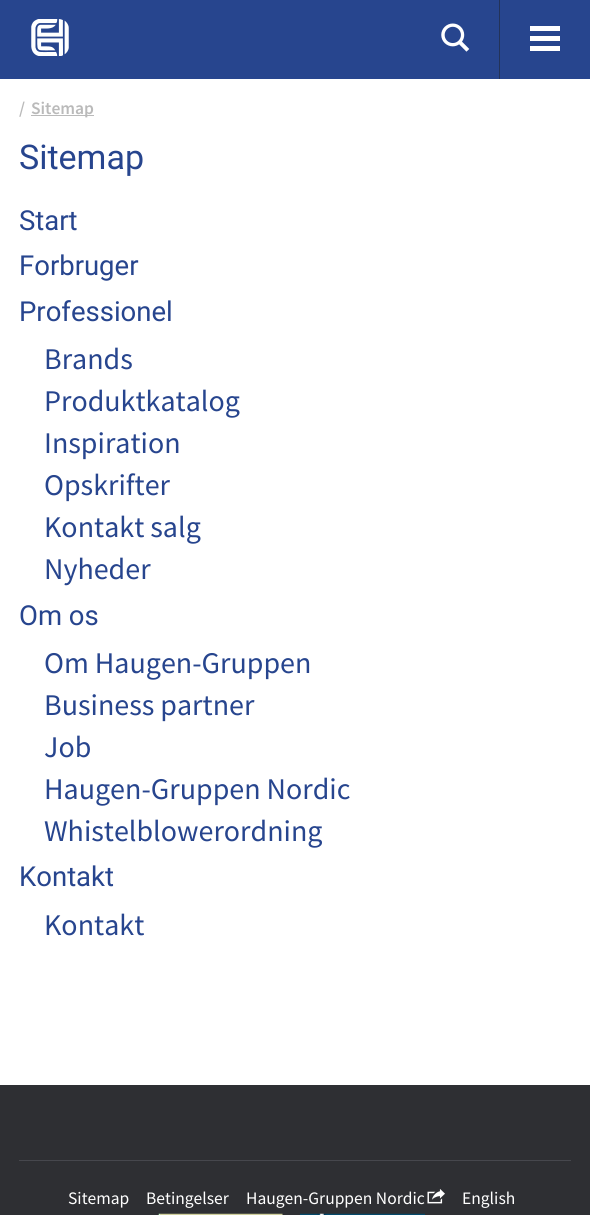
#include <cairo/cairo.h>
#include <math.h>
#include <stddef.h>

typedef struct { double x, y; const char *s; } line_t;
typedef struct { double x, y, w, h; unsigned color; } box_t;
static cairo_t *cr;

static void rgb(unsigned color)
{
	cairo_set_source_rgb(cr, (color >> 16) / 255.0, (color >> 8 & 255) / 255.0, (color & 255) / 255.0);
}

static void image(const char *path, double x, double y, double w, double h)
{
	cairo_surface_t *image = cairo_image_surface_create_from_png(path);
	cairo_save(cr);
	cairo_set_source_surface(cr, image, x, y);
	cairo_rectangle(cr, x, y, w, h);
	cairo_fill(cr);
	cairo_restore(cr);
	cairo_surface_destroy(image);
}

int main(void) {
	cairo_surface_t *surface = cairo_image_surface_create(CAIRO_FORMAT_RGB24, 590, 1215);
	cr = cairo_create(surface);
	cairo_font_options_t *options = cairo_font_options_create();
	cairo_font_options_set_hint_metrics(options, CAIRO_HINT_METRICS_OFF);
	cairo_font_options_set_hint_style(options, CAIRO_HINT_STYLE_NONE);
	cairo_set_font_options(cr, options);
	cairo_set_miter_limit(cr, 4);
	rgb(0xffffff);
	cairo_paint(cr);
	rgb(0x27458e);
	cairo_rectangle(cr, 0, 0, 590, 79);
	cairo_fill(cr);
	rgb(0x233359);
	cairo_rectangle(cr, 499, 0, 1, 79);
	cairo_fill(cr);
	image("img/1.png", 441, 23, 29, 29);
	{
		static const box_t items[] = {
			{530, 26, 30, 5, 0xffffff},
			{530, 36, 30, 5, 0xffffff},
			{530, 46, 30, 5, 0xffffff},
		};
		for (size_t i = 0; i < sizeof items / sizeof *items; i++) {
			rgb(items[i].color);
			cairo_rectangle(cr, items[i].x, items[i].y, items[i].w, items[i].h);
			cairo_fill(cr);
		}
	}
	image("img/2.png", 31, 19, 38, 37);
	{
		static const box_t items[] = {
			{31, 115, 63, 1, 0xbababa},
			{0, 1085, 590, 130, 0x2e2f33},
			{19, 1160, 552, 1, 0x46474d},
		};
		for (size_t i = 0; i < sizeof items / sizeof *items; i++) {
			rgb(items[i].color);
			cairo_rectangle(cr, items[i].x, items[i].y, items[i].w, items[i].h);
			cairo_fill(cr);
		}
	}
	image("img/3.png", 427, 1189, 18, 15);
	image("img/4.png", 158, 1213, 125, 2);
	image("img/5.png", 300, 1213, 125, 2);
	cairo_select_font_face(cr, "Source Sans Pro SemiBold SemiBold", CAIRO_FONT_SLANT_NORMAL, CAIRO_FONT_WEIGHT_NORMAL);
	cairo_set_font_size(cr, 17.5);
	rgb(0xbababa);
	cairo_move_to(cr, 19, 114);
	cairo_show_text(cr, "/");
	cairo_move_to(cr, 31, 114);
	cairo_show_text(cr, "Sitemap");
	cairo_select_font_face(cr, "Roboto", CAIRO_FONT_SLANT_NORMAL, CAIRO_FONT_WEIGHT_NORMAL);
	cairo_set_font_size(cr, 34);
	rgb(0x27458e);
	cairo_move_to(cr, 19, 169);
	cairo_show_text(cr, "Sitemap");
	cairo_set_font_size(cr, 27.5);
	{
		static const line_t items[] = {
			{19, 230, "Start"},
			{19, 275, "Forbruger"},
			{19, 321, "Professionel"},
		};
		for (size_t i = 0; i < sizeof items / sizeof *items; i++) {
			cairo_move_to(cr, items[i].x, items[i].y);
			cairo_show_text(cr, items[i].s);
		}
	}
	cairo_select_font_face(cr, "Source Sans Pro", CAIRO_FONT_SLANT_NORMAL, CAIRO_FONT_WEIGHT_NORMAL);
	cairo_set_font_size(cr, 30);
	{
		static const line_t items[] = {
			{44, 369, "Brands"},
			{44, 411, "Produktkatalog"},
			{44, 453, "Inspiration"},
			{44, 495, "Opskrifter"},
			{44, 537, "Kontakt salg"},
			{44, 579, "Nyheder"},
		};
		for (size_t i = 0; i < sizeof items / sizeof *items; i++) {
			cairo_move_to(cr, items[i].x, items[i].y);
			cairo_show_text(cr, items[i].s);
		}
	}
	cairo_select_font_face(cr, "Roboto", CAIRO_FONT_SLANT_NORMAL, CAIRO_FONT_WEIGHT_NORMAL);
	cairo_set_font_size(cr, 27.5);
	cairo_move_to(cr, 19, 625);
	cairo_show_text(cr, "Om os");
	cairo_select_font_face(cr, "Source Sans Pro", CAIRO_FONT_SLANT_NORMAL, CAIRO_FONT_WEIGHT_NORMAL);
	cairo_set_font_size(cr, 30);
	{
		static const line_t items[] = {
			{44, 673, "Om Haugen-Gruppen"},
			{44, 715, "Business partner"},
			{44, 757, "Job"},
			{44, 799, "Haugen-Gruppen Nordic"},
			{44, 841, "Whistelblowerordning"},
		};
		for (size_t i = 0; i < sizeof items / sizeof *items; i++) {
			cairo_move_to(cr, items[i].x, items[i].y);
			cairo_show_text(cr, items[i].s);
		}
	}
	cairo_select_font_face(cr, "Roboto", CAIRO_FONT_SLANT_NORMAL, CAIRO_FONT_WEIGHT_NORMAL);
	cairo_set_font_size(cr, 27.5);
	cairo_move_to(cr, 19, 886);
	cairo_show_text(cr, "Kontakt");
	cairo_select_font_face(cr, "Source Sans Pro", CAIRO_FONT_SLANT_NORMAL, CAIRO_FONT_WEIGHT_NORMAL);
	cairo_set_font_size(cr, 30);
	cairo_move_to(cr, 44, 935);
	cairo_show_text(cr, "Kontakt");
	cairo_set_font_size(cr, 17.5);
	rgb(0xffffff);
	{
		static const line_t items[] = {
			{68, 1204, "Sitemap"},
			{146, 1204, "Betingelser"},
			{246, 1204, "Haugen-Gruppen Nordic"},
			{462, 1204, "English"},
		};
		for (size_t i = 0; i < sizeof items / sizeof *items; i++) {
			cairo_move_to(cr, items[i].x, items[i].y);
			cairo_show_text(cr, items[i].s);
		}
	}
	cairo_surface_write_to_png(surface, "page.png");
	cairo_font_options_destroy(options);
	cairo_destroy(cr);
	cairo_surface_destroy(surface);
	return 0;
}
